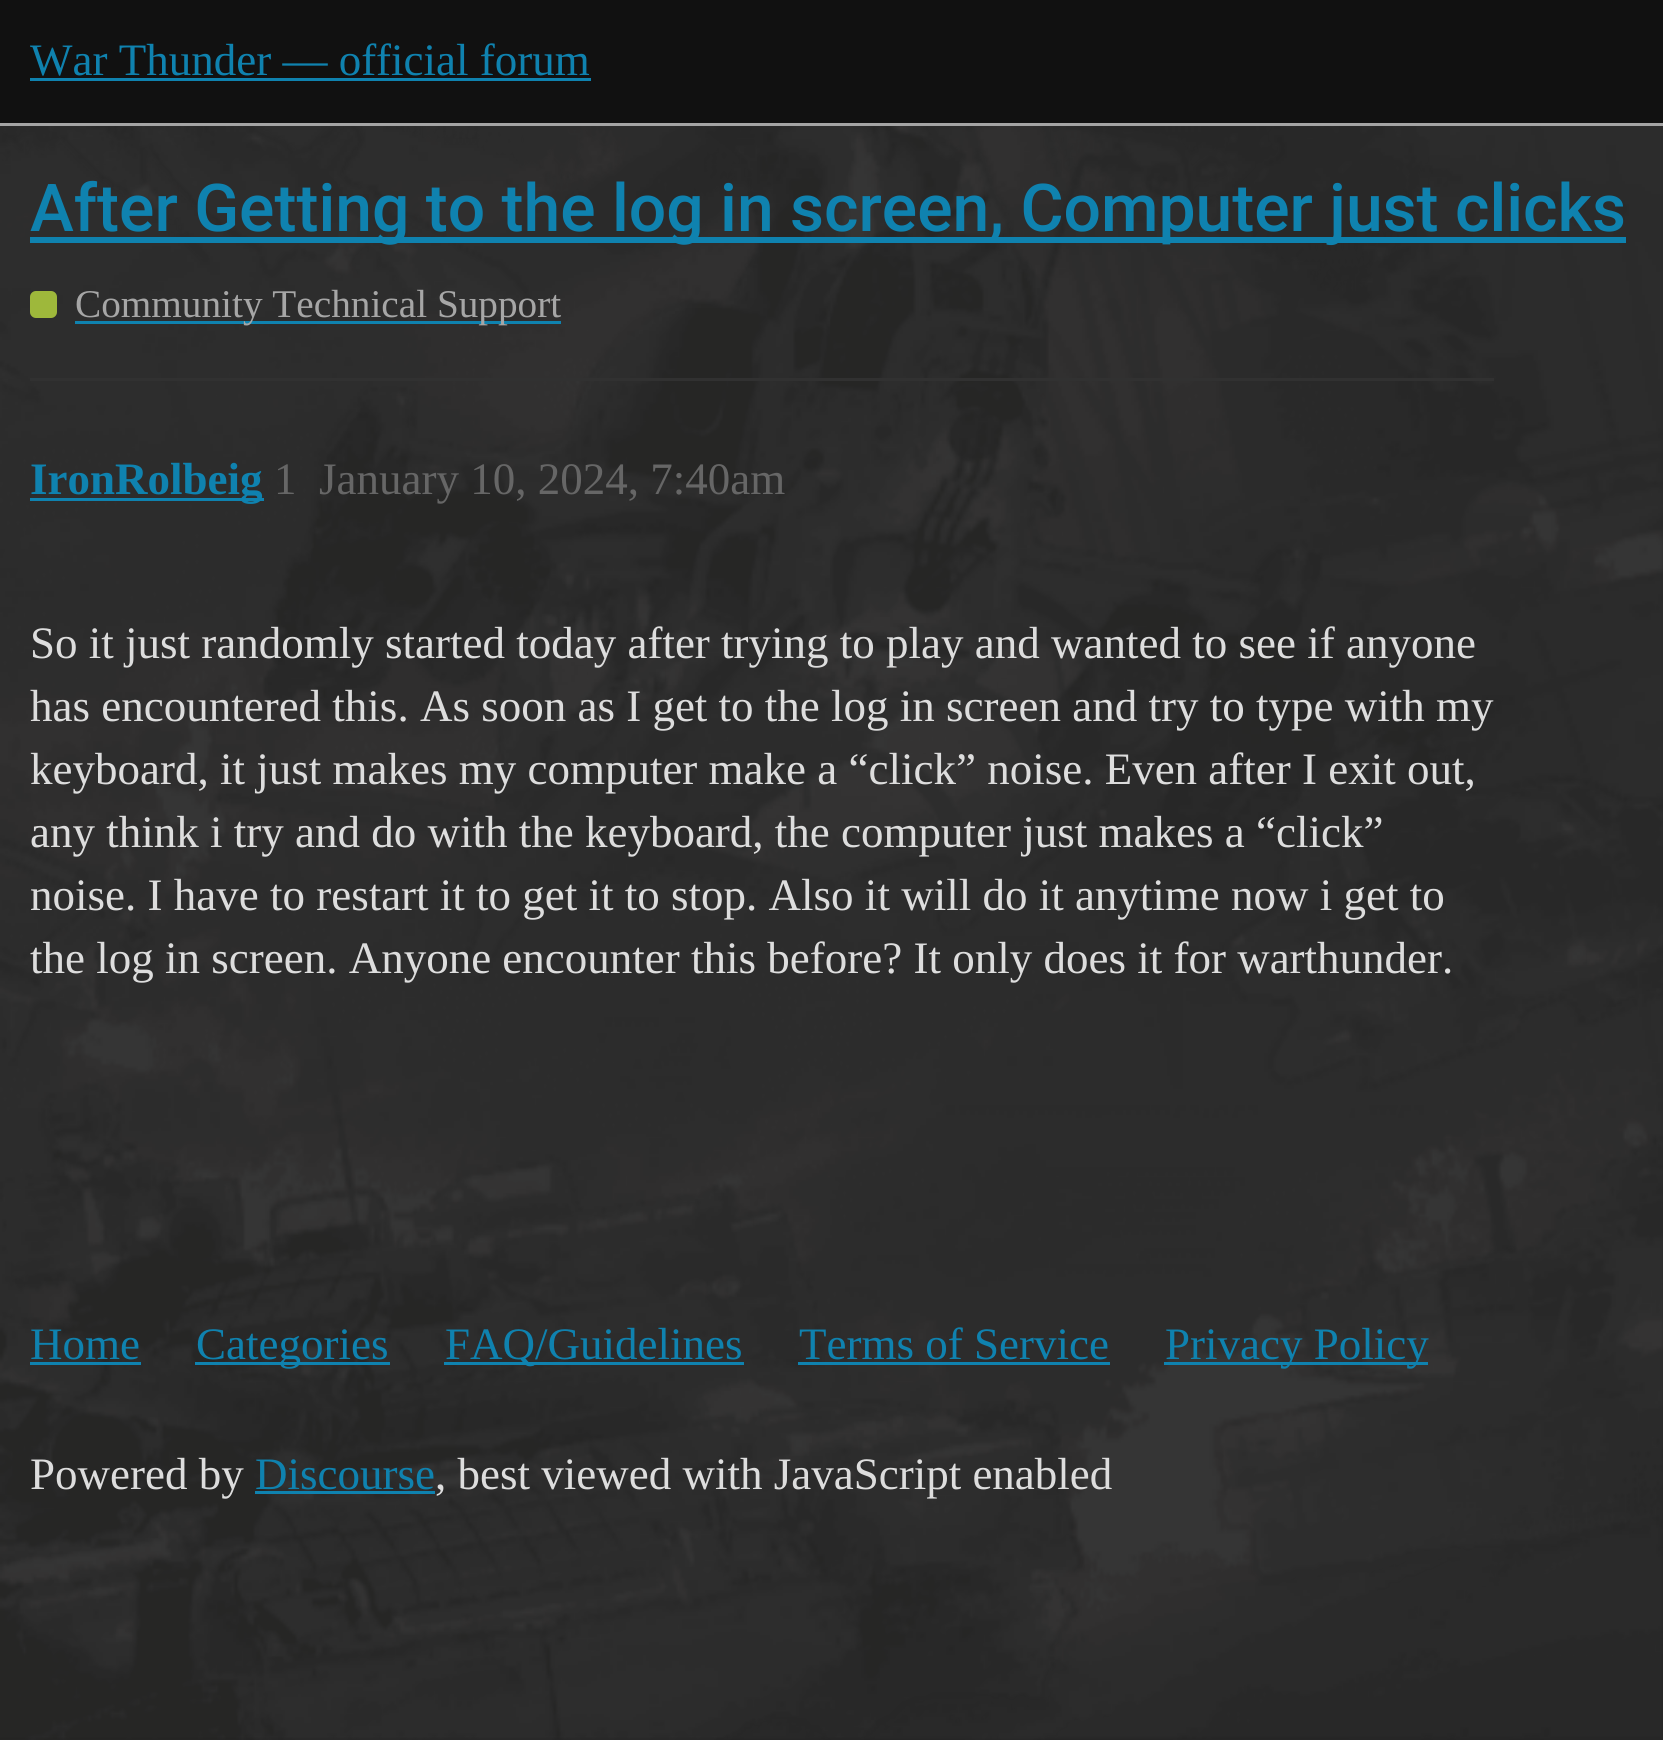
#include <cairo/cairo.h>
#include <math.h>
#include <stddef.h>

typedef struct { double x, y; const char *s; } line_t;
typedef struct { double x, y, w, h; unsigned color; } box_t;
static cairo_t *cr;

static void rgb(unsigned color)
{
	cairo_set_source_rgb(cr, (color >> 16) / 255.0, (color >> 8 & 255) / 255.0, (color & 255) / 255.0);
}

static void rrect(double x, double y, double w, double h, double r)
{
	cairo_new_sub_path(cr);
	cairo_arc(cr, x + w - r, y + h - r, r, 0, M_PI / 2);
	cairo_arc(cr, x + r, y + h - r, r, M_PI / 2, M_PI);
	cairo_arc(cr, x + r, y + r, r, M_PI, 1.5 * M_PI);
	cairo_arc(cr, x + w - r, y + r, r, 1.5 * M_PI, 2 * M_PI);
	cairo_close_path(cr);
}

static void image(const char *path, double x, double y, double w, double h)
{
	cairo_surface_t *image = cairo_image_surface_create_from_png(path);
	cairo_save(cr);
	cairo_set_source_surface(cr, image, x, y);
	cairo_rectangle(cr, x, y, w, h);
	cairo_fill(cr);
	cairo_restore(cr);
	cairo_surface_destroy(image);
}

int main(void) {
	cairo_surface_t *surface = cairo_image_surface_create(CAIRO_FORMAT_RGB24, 1663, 1740);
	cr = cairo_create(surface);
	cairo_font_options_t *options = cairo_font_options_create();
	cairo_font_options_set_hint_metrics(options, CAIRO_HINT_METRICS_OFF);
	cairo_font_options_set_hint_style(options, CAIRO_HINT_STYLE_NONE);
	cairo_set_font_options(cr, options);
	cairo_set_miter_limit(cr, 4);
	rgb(0x222222);
	cairo_paint(cr);
	image("img/1.png", 0, 126, 1663, 1614);
	{
		static const box_t items[] = {
			{0, 0, 1663, 123, 0x111111},
			{0, 123, 1663, 3, 0xa4a4a4},
			{30, 78, 561, 3, 0x0f82af},
			{30, 237, 1596, 6, 0x0f82af},
		};
		for (size_t i = 0; i < sizeof items / sizeof *items; i++) {
			rgb(items[i].color);
			cairo_rectangle(cr, items[i].x, items[i].y, items[i].w, items[i].h);
			cairo_fill(cr);
		}
	}
	rgb(0x9eb83b);
	rrect(30, 291, 27, 27, 6);
	cairo_fill(cr);
	{
		static const box_t items[] = {
			{75, 321, 486, 3, 0x0f82af},
			{30, 378, 1464, 3, 0x313131},
			{30, 498, 234, 3, 0x0f82af},
			{30, 1362, 111, 3, 0x0f82af},
			{195, 1362, 195, 3, 0x0f82af},
			{444, 1362, 300, 3, 0x0f82af},
			{798, 1362, 312, 3, 0x0f82af},
			{1164, 1362, 264, 3, 0x0f82af},
			{255, 1491, 180, 3, 0x0f82af},
		};
		for (size_t i = 0; i < sizeof items / sizeof *items; i++) {
			rgb(items[i].color);
			cairo_rectangle(cr, items[i].x, items[i].y, items[i].w, items[i].h);
			cairo_fill(cr);
		}
	}
	cairo_select_font_face(cr, "Liberation Serif", CAIRO_FONT_SLANT_NORMAL, CAIRO_FONT_WEIGHT_NORMAL);
	cairo_set_font_size(cr, 45);
	cairo_move_to(cr, 30, 75);
	cairo_show_text(cr, "War Thunder — official forum");
	cairo_select_font_face(cr, "Roboto Medium", CAIRO_FONT_SLANT_NORMAL, CAIRO_FONT_WEIGHT_NORMAL);
	cairo_set_font_size(cr, 66);
	cairo_move_to(cr, 30, 231);
	cairo_show_text(cr, "After Getting to the log in screen, Computer just clicks");
	cairo_select_font_face(cr, "Liberation Serif", CAIRO_FONT_SLANT_NORMAL, CAIRO_FONT_WEIGHT_NORMAL);
	cairo_set_font_size(cr, 39.25);
	rgb(0xa6a6a6);
	cairo_move_to(cr, 75, 317);
	cairo_show_text(cr, "Community Technical Support");
	cairo_select_font_face(cr, "Liberation Serif", CAIRO_FONT_SLANT_NORMAL, CAIRO_FONT_WEIGHT_BOLD);
	cairo_set_font_size(cr, 45);
	rgb(0x0f82af);
	cairo_move_to(cr, 30, 494);
	cairo_show_text(cr, "IronRolbeig");
	cairo_select_font_face(cr, "Liberation Serif", CAIRO_FONT_SLANT_NORMAL, CAIRO_FONT_WEIGHT_NORMAL);
	rgb(0x666666);
	cairo_move_to(cr, 274, 494);
	cairo_show_text(cr, "1");
	cairo_move_to(cr, 319, 494);
	cairo_show_text(cr, "January 10, 2024, 7:40am");
	rgb(0xdddddd);
	{
		static const line_t items[] = {
			{30, 658, "So it just randomly started today after trying to play and wanted to see if anyone"},
			{30, 721, "has encountered this. As soon as I get to the log in screen and try to type with my"},
			{30, 784, "keyboard, it just makes my computer make a “click” noise. Even after I exit out,"},
			{30, 847, "any think i try and do with the keyboard, the computer just makes a “click”"},
			{30, 910, "noise. I have to restart it to get it to stop. Also it will do it anytime now i get to"},
			{30, 973, "the log in screen. Anyone encounter this before? It only does it for warthunder."},
		};
		for (size_t i = 0; i < sizeof items / sizeof *items; i++) {
			cairo_move_to(cr, items[i].x, items[i].y);
			cairo_show_text(cr, items[i].s);
		}
	}
	rgb(0x0f82af);
	{
		static const line_t items[] = {
			{30, 1359, "Home"},
			{196, 1359, "Categories"},
			{445, 1359, "FAQ/Guidelines"},
			{799, 1359, "Terms of Service"},
			{1165, 1359, "Privacy Policy"},
		};
		for (size_t i = 0; i < sizeof items / sizeof *items; i++) {
			cairo_move_to(cr, items[i].x, items[i].y);
			cairo_show_text(cr, items[i].s);
		}
	}
	rgb(0xdddddd);
	cairo_move_to(cr, 30, 1489);
	cairo_show_text(cr, "Powered by");
	rgb(0x0f82af);
	cairo_move_to(cr, 255, 1489);
	cairo_show_text(cr, "Discourse");
	rgb(0xdddddd);
	cairo_move_to(cr, 435, 1489);
	cairo_show_text(cr, ", best viewed with JavaScript enabled");
	cairo_surface_write_to_png(surface, "page.png");
	cairo_font_options_destroy(options);
	cairo_destroy(cr);
	cairo_surface_destroy(surface);
	return 0;
}
